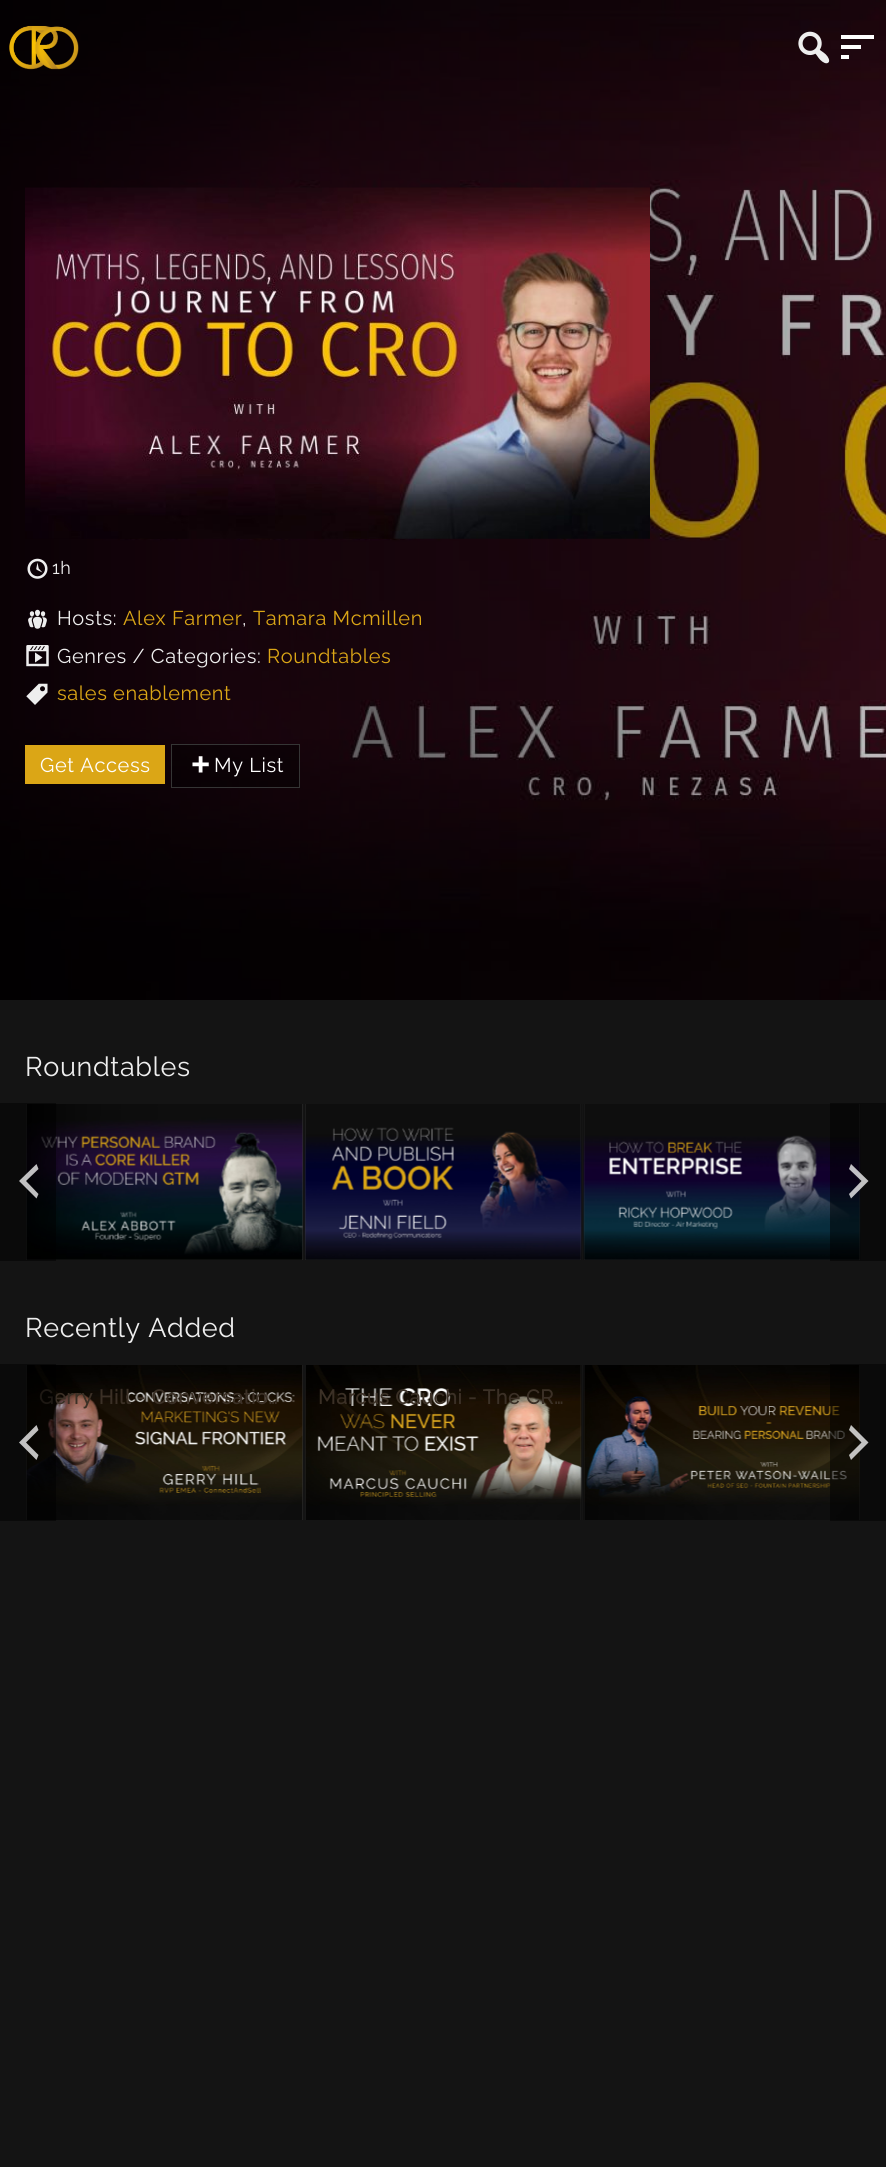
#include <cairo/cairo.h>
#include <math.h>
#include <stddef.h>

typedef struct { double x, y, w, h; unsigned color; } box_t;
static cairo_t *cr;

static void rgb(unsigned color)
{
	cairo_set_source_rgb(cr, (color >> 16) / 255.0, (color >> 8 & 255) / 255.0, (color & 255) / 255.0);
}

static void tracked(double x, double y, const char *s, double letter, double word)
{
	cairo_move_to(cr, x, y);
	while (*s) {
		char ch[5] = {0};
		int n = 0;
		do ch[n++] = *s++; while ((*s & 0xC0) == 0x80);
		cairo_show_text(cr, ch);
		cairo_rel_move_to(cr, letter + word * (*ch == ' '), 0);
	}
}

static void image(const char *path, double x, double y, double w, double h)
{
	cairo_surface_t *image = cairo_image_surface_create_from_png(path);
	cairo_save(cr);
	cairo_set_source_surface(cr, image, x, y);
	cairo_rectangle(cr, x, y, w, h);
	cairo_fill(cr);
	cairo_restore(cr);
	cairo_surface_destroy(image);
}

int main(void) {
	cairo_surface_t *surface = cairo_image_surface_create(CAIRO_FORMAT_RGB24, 886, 2167);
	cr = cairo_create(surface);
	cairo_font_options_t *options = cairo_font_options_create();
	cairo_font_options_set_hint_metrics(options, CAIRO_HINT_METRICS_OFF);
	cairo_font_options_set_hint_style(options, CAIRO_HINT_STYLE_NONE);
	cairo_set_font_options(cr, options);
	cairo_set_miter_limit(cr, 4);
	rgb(0x141414);
	cairo_paint(cr);
	image("img/3.png", 0, 0, 886, 1000);
	image("img/1.png", 9, 25, 70, 45);
	image("img/2.png", 798, 31, 32, 33);
	{
		static const box_t items[] = {
			{841, 45, 20, 4, 0xffffff},
			{841, 35, 33, 4, 0xffffff},
			{841, 55, 8, 4, 0xffffff},
		};
		for (size_t i = 0; i < sizeof items / sizeof *items; i++) {
			rgb(items[i].color);
			cairo_rectangle(cr, items[i].x, items[i].y, items[i].w, items[i].h);
			cairo_fill(cr);
		}
	}
	image("img/4.png", 25, 187, 625, 352);
	image("img/5.png", 27, 558, 21, 21);
	image("img/6.png", 28, 609, 19, 20);
	image("img/7.png", 26, 645, 23, 22);
	image("img/8.png", 26, 683, 22, 22);
	rgb(0xdba616);
	cairo_rectangle(cr, 25, 745, 140, 39);
	cairo_fill(cr);
	cairo_set_source_rgba(cr, 0, 0, 0, 0.4);
	cairo_rectangle(cr, 171.5, 744.5, 128, 43);
	cairo_fill_preserve(cr);
	rgb(0x353535);
	cairo_set_line_width(cr, 1);
	cairo_stroke(cr);
	image("img/9.png", 192, 756, 17, 17);
	cairo_rectangle(cr, 26, 1104, 277, 156);
	cairo_fill(cr);
	image("img/10.png", 26, 1104, 277, 156);
	cairo_set_source_rgba(cr, 0, 0, 0, 0.5);
	cairo_rectangle(cr, 0, 1103, 56, 158);
	cairo_fill(cr);
	cairo_set_source_rgba(cr, 1, 1, 1, 0.75);
	cairo_new_path(cr);
	cairo_move_to(cr, 38.5, 1169);
	cairo_line_to(cr, 26, 1181);
	cairo_line_to(cr, 38.5, 1194);
	cairo_line_to(cr, 36.5, 1198.5);
	cairo_line_to(cr, 19, 1181);
	cairo_line_to(cr, 36.5, 1164);
	cairo_close_path(cr);
	cairo_fill(cr);
	rgb(0x353535);
	cairo_rectangle(cr, 584, 1104, 276, 156);
	cairo_fill(cr);
	image("img/12.png", 583, 1104, 278, 156);
	cairo_set_source_rgba(cr, 0, 0, 0, 0.5);
	cairo_rectangle(cr, 830, 1103, 56, 158);
	cairo_fill(cr);
	cairo_set_source_rgba(cr, 1, 1, 1, 0.75);
	cairo_new_path(cr);
	cairo_move_to(cr, 849, 1194);
	cairo_line_to(cr, 861.5, 1181);
	cairo_line_to(cr, 849, 1169);
	cairo_line_to(cr, 851, 1164);
	cairo_line_to(cr, 868.5, 1181);
	cairo_line_to(cr, 851, 1198.5);
	cairo_close_path(cr);
	cairo_fill(cr);
	rgb(0x353535);
	cairo_rectangle(cr, 305, 1104, 276, 156);
	cairo_fill(cr);
	image("img/11.png", 304, 1104, 278, 156);
	cairo_rectangle(cr, 26, 1365, 277, 155);
	cairo_fill(cr);
	image("img/13.png", 26, 1365, 277, 155);
	cairo_rectangle(cr, 305, 1365, 276, 155);
	cairo_fill(cr);
	image("img/14.png", 305, 1365, 277, 155);
	cairo_rectangle(cr, 584, 1365, 276, 155);
	cairo_fill(cr);
	image("img/15.png", 583, 1365, 277, 155);
	cairo_set_source_rgba(cr, 0, 0, 0, 0.5);
	cairo_rectangle(cr, 830, 1364, 56, 157);
	cairo_fill(cr);
	cairo_set_source_rgba(cr, 1, 1, 1, 0.75);
	cairo_new_path(cr);
	cairo_move_to(cr, 849, 1455);
	cairo_line_to(cr, 861.5, 1442.5);
	cairo_line_to(cr, 849, 1430);
	cairo_line_to(cr, 851, 1425);
	cairo_line_to(cr, 868.5, 1442.5);
	cairo_line_to(cr, 851, 1460);
	cairo_close_path(cr);
	cairo_fill(cr);
	cairo_select_font_face(cr, "Raleway Thin", CAIRO_FONT_SLANT_NORMAL, CAIRO_FONT_WEIGHT_NORMAL);
	cairo_set_font_size(cr, 18);
	rgb(0xeeeeee);
	tracked(52, 574, "1h", 0.6, 0);
	cairo_set_font_size(cr, 20);
	tracked(57, 625, "Hosts:", 0.6, 0);
	rgb(0xdba616);
	tracked(123, 625, "Alex Farmer", 0.6, 0);
	rgb(0xeeeeee);
	tracked(242, 625, ",", 0.6, 0);
	rgb(0xdba616);
	tracked(253, 625, "Tamara Mcmillen", 0.6, 0);
	rgb(0xeeeeee);
	tracked(57, 663, "Genres / Categories:", 0.6, 0);
	rgb(0xdba616);
	tracked(267, 663, "Roundtables", 0.6, 0);
	tracked(57, 700, "sales enablement", 0.6, 0);
	rgb(0xffffff);
	tracked(40, 772, "Get Access", 0.6, 0);
	tracked(214, 772, "My List", 0.6, 0);
	cairo_set_font_size(cr, 27);
	rgb(0xeeeeee);
	tracked(25, 1076, "Roundtables", 0.6, 0);
	tracked(25, 1337, "Recently Added", 0.6, 0);
	cairo_select_font_face(cr, "Raleway", CAIRO_FONT_SLANT_NORMAL, CAIRO_FONT_WEIGHT_BOLD);
	cairo_set_font_size(cr, 20);
	rgb(0x3b3026);
	tracked(39, 1404, "Gerry Hill - Conversatio…", 0.6, 0);
	cairo_set_source_rgba(cr, 0, 0, 0, 0.5);
	cairo_rectangle(cr, 0, 1364, 56, 157);
	cairo_fill(cr);
	cairo_set_source_rgba(cr, 1, 1, 1, 0.75);
	cairo_new_path(cr);
	cairo_move_to(cr, 38.5, 1430);
	cairo_line_to(cr, 26, 1442.5);
	cairo_line_to(cr, 38.5, 1455);
	cairo_line_to(cr, 36.5, 1460);
	cairo_line_to(cr, 19, 1442.5);
	cairo_line_to(cr, 36.5, 1425);
	cairo_close_path(cr);
	cairo_fill(cr);
	rgb(0x3b3026);
	tracked(318, 1404, "Marcus Cauchi - The CR…", 0.6, 0);
	cairo_surface_write_to_png(surface, "page.png");
	cairo_font_options_destroy(options);
	cairo_destroy(cr);
	cairo_surface_destroy(surface);
	return 0;
}
